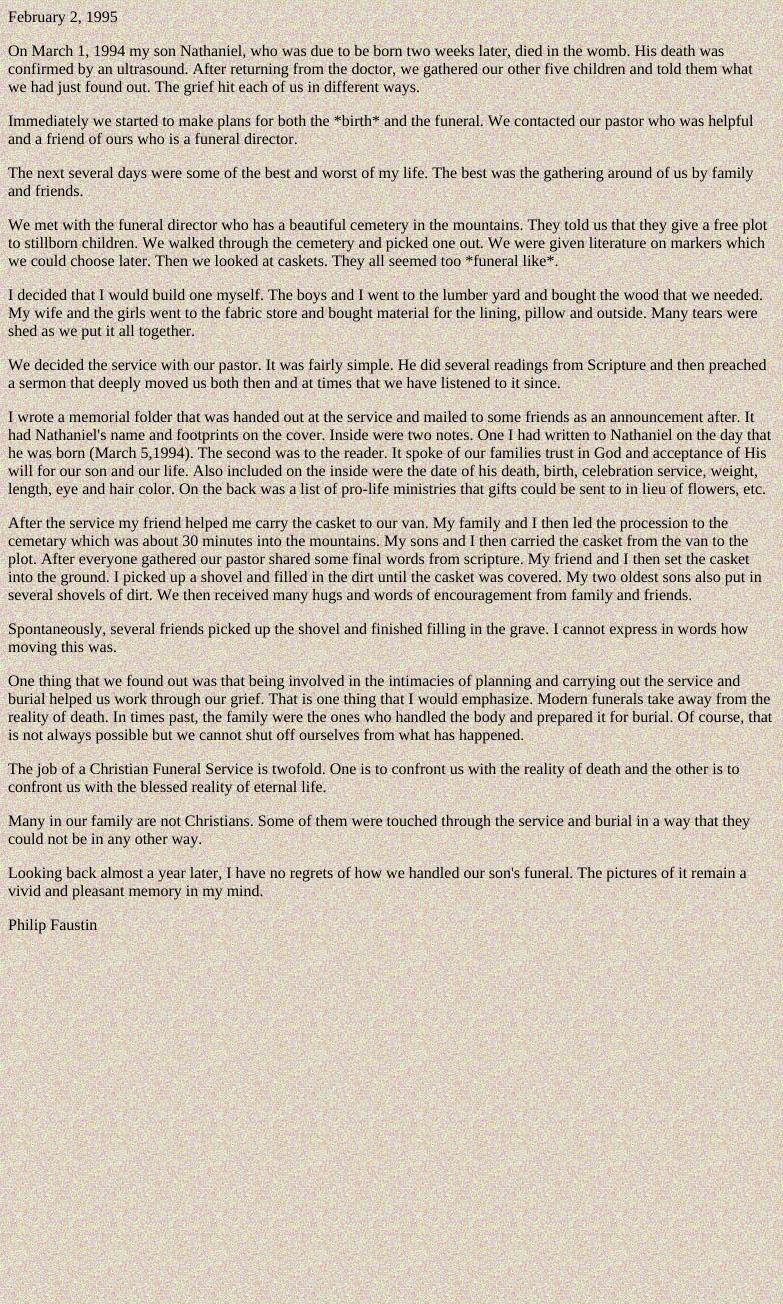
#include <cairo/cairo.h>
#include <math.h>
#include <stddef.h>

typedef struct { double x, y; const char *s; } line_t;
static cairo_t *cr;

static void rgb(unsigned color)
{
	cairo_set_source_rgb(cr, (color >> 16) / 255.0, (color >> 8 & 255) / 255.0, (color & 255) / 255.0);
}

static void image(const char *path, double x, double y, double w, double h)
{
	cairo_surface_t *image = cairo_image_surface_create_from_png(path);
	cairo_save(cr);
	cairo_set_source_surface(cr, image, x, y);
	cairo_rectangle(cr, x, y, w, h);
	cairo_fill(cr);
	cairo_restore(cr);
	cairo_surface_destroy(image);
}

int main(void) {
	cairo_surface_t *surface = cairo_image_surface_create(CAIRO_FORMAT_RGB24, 783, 1304);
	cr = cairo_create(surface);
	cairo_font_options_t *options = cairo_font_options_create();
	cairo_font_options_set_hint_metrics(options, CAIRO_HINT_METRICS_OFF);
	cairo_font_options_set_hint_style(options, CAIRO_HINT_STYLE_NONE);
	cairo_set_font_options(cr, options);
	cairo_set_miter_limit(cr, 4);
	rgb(0xffffff);
	cairo_paint(cr);
	image("img/1.png", 0, 0, 783, 1304);
	cairo_select_font_face(cr, "Liberation Serif", CAIRO_FONT_SLANT_NORMAL, CAIRO_FONT_WEIGHT_NORMAL);
	cairo_set_font_size(cr, 16);
	rgb(0x000000);
	{
		static const line_t items[] = {
			{8, 22, "February 2, 1995"},
			{8, 56, "On March 1, 1994 my son Nathaniel, who was due to be born two weeks later, died in the womb. His death was"},
			{8, 74, "confirmed by an ultrasound. After returning from the doctor, we gathered our other five children and told them what"},
			{8, 92, "we had just found out. The grief hit each of us in different ways."},
			{8, 126, "Immediately we started to make plans for both the *birth* and the funeral. We contacted our pastor who was helpful"},
			{8, 144, "and a friend of ours who is a funeral director."},
			{8, 178, "The next several days were some of the best and worst of my life. The best was the gathering around of us by family"},
			{8, 196, "and friends."},
			{8, 230, "We met with the funeral director who has a beautiful cemetery in the mountains. They told us that they give a free plot"},
			{8, 248, "to stillborn children. We walked through the cemetery and picked one out. We were given literature on markers which"},
			{8, 266, "we could choose later. Then we looked at caskets. They all seemed too *funeral like*."},
			{8, 300, "I decided that I would build one myself. The boys and I went to the lumber yard and bought the wood that we needed."},
			{8, 318, "My wife and the girls went to the fabric store and bought material for the lining, pillow and outside. Many tears were"},
			{8, 336, "shed as we put it all together."},
			{8, 370, "We decided the service with our pastor. It was fairly simple. He did several readings from Scripture and then preached"},
			{8, 388, "a sermon that deeply moved us both then and at times that we have listened to it since."},
			{8, 422, "I wrote a memorial folder that was handed out at the service and mailed to some friends as an announcement after. It"},
			{8, 440, "had Nathaniel's name and footprints on the cover. Inside were two notes. One I had written to Nathaniel on the day that"},
			{8, 458, "he was born (March 5,1994). The second was to the reader. It spoke of our families trust in God and acceptance of His"},
			{8, 476, "will for our son and our life. Also included on the inside were the date of his death, birth, celebration service, weight,"},
			{8, 494, "length, eye and hair color. On the back was a list of pro-life ministries that gifts could be sent to in lieu of flowers, etc."},
			{8, 528, "After the service my friend helped me carry the casket to our van. My family and I then led the procession to the"},
			{8, 546, "cemetary which was about 30 minutes into the mountains. My sons and I then carried the casket from the van to the"},
			{8, 564, "plot. After everyone gathered our pastor shared some final words from scripture. My friend and I then set the casket"},
			{8, 582, "into the ground. I picked up a shovel and filled in the dirt until the casket was covered. My two oldest sons also put in"},
			{8, 600, "several shovels of dirt. We then received many hugs and words of encouragement from family and friends."},
			{8, 634, "Spontaneously, several friends picked up the shovel and finished filling in the grave. I cannot express in words how"},
			{8, 652, "moving this was."},
			{8, 686, "One thing that we found out was that being involved in the intimacies of planning and carrying out the service and"},
			{8, 704, "burial helped us work through our grief. That is one thing that I would emphasize. Modern funerals take away from the"},
			{8, 722, "reality of death. In times past, the family were the ones who handled the body and prepared it for burial. Of course, that"},
			{8, 740, "is not always possible but we cannot shut off ourselves from what has happened."},
			{8, 774, "The job of a Christian Funeral Service is twofold. One is to confront us with the reality of death and the other is to"},
			{8, 792, "confront us with the blessed reality of eternal life."},
			{8, 826, "Many in our family are not Christians. Some of them were touched through the service and burial in a way that they"},
			{8, 844, "could not be in any other way."},
			{8, 878, "Looking back almost a year later, I have no regrets of how we handled our son's funeral. The pictures of it remain a"},
			{8, 896, "vivid and pleasant memory in my mind."},
			{8, 930, "Philip Faustin"},
		};
		for (size_t i = 0; i < sizeof items / sizeof *items; i++) {
			cairo_move_to(cr, items[i].x, items[i].y);
			cairo_show_text(cr, items[i].s);
		}
	}
	cairo_surface_write_to_png(surface, "page.png");
	cairo_font_options_destroy(options);
	cairo_destroy(cr);
	cairo_surface_destroy(surface);
	return 0;
}
